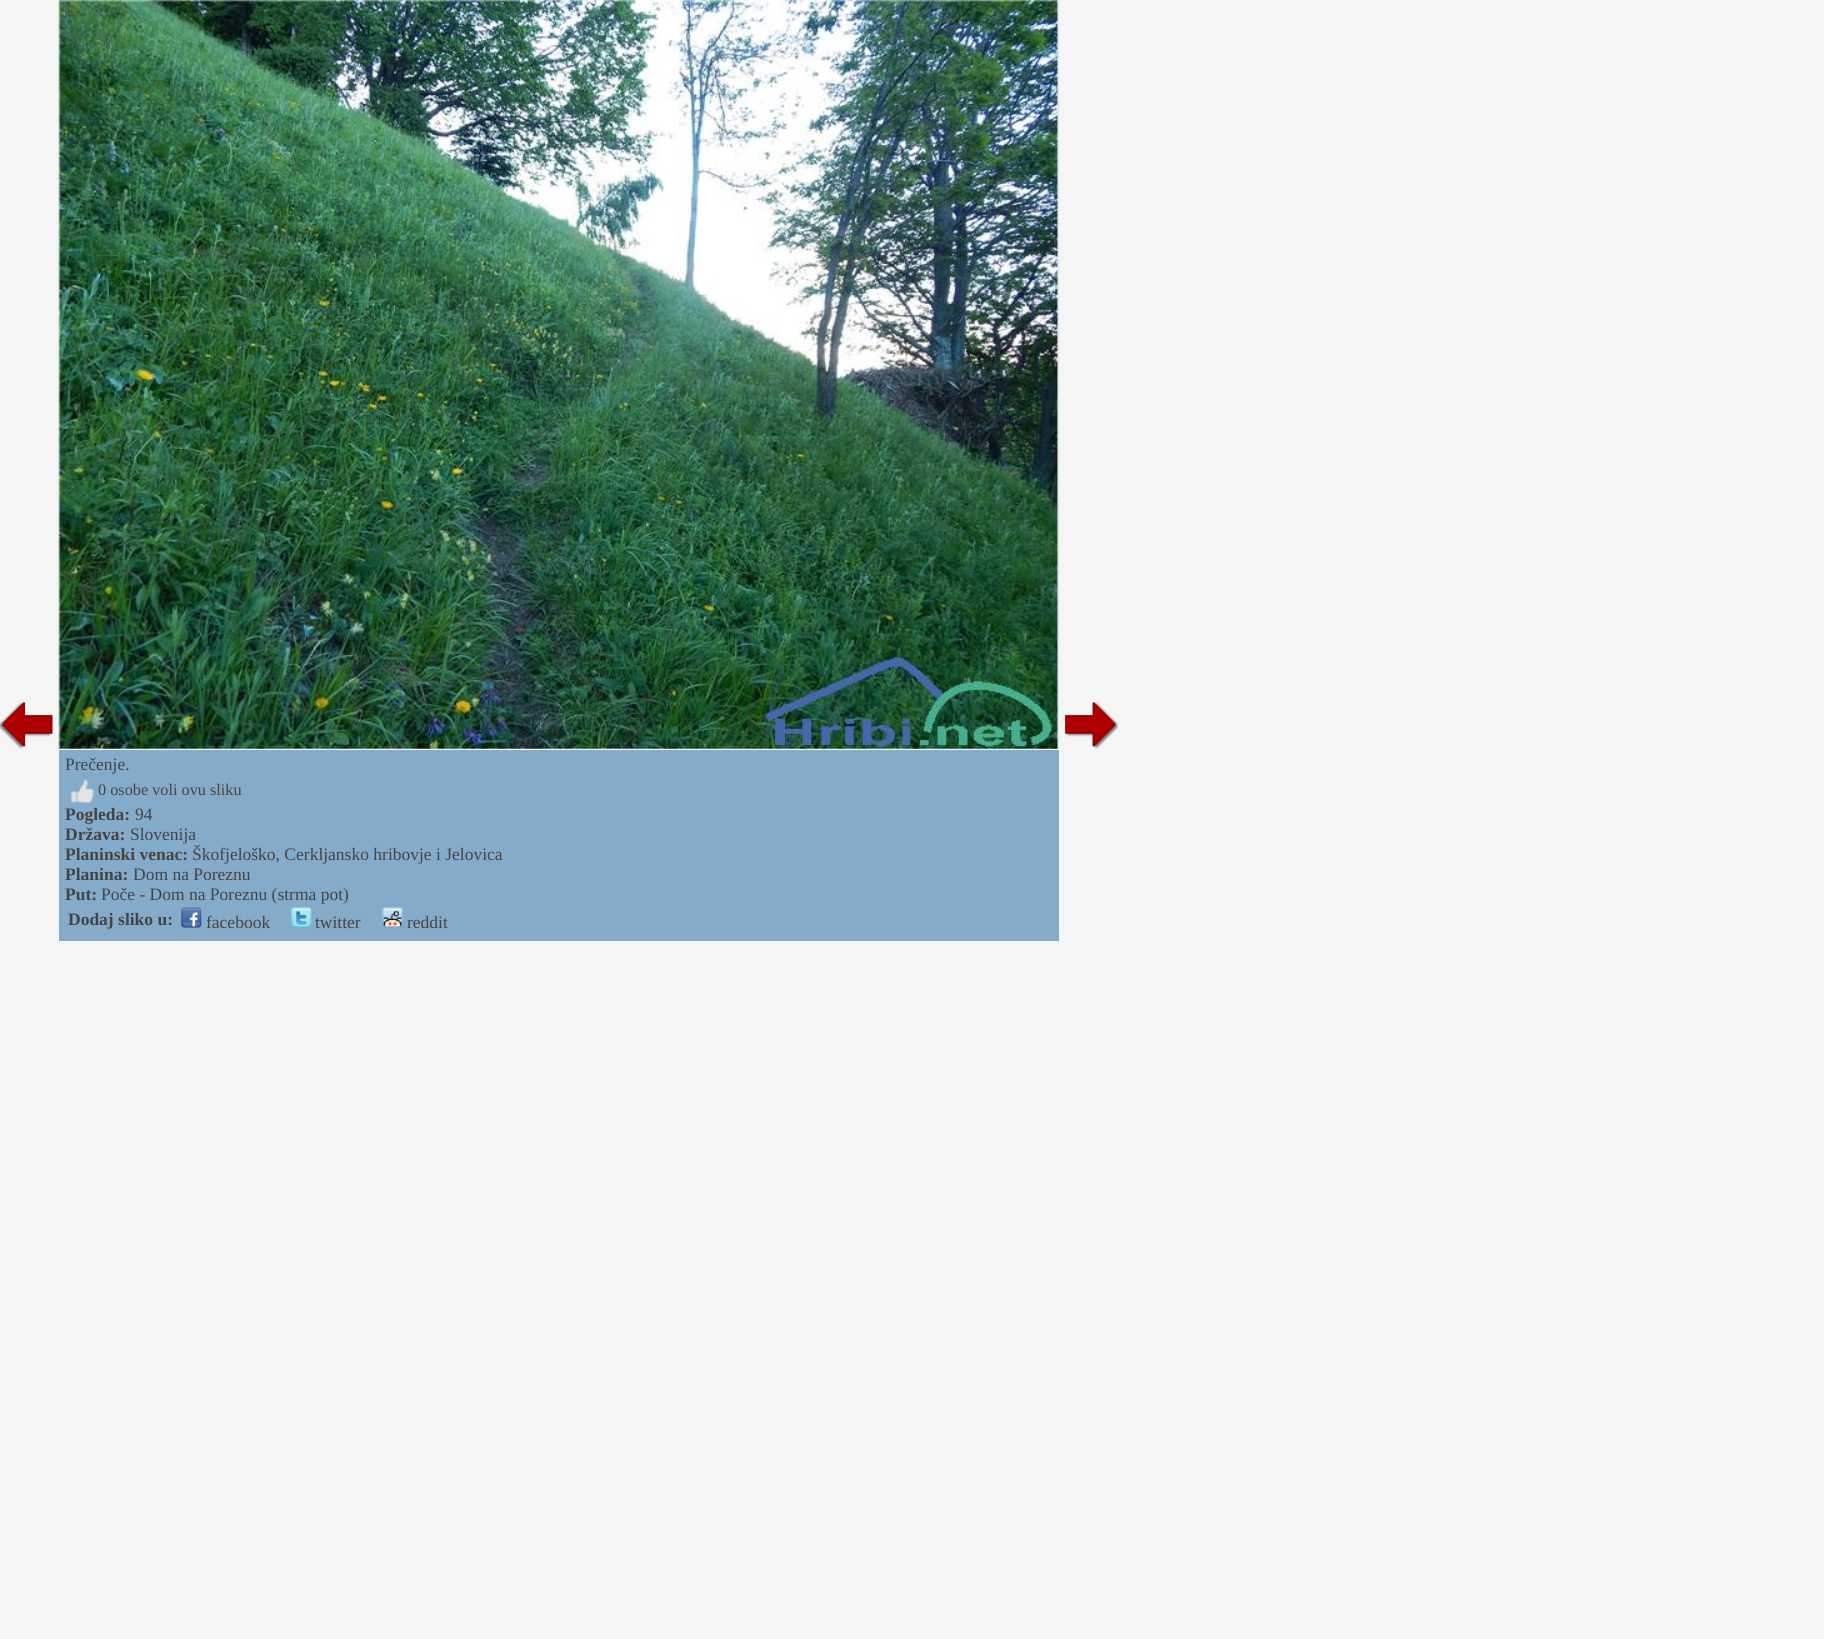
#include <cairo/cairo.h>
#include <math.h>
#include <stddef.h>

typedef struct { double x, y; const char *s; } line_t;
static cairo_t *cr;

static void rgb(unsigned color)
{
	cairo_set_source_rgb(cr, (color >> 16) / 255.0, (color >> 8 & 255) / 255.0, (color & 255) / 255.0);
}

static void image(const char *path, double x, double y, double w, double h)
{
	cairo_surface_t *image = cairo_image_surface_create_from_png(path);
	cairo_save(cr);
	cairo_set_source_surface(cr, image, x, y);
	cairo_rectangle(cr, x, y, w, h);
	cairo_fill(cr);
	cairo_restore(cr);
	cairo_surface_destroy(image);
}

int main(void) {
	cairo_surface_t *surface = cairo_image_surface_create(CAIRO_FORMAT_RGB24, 1824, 1639);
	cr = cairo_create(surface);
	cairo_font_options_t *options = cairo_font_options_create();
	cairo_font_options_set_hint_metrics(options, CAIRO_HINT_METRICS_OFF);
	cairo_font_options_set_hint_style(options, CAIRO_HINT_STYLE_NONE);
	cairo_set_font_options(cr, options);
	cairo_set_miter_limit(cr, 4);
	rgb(0xf5f5f5);
	cairo_paint(cr);
	image("img/1.png", 0, 702, 53, 47);
	image("img/2.png", 1064, 702, 54, 47);
	rgb(0x85abca);
	cairo_rectangle(cr, 59, 0, 1000, 941);
	cairo_fill(cr);
	image("img/3.png", 58, 0, 1001, 750);
	image("img/4.png", 71, 780, 23, 23);
	image("img/5.png", 181, 907, 21, 21);
	image("img/6.png", 291, 907, 21, 21);
	image("img/7.png", 382, 907, 21, 21);
	cairo_select_font_face(cr, "Liberation Serif", CAIRO_FONT_SLANT_NORMAL, CAIRO_FONT_WEIGHT_NORMAL);
	cairo_set_font_size(cr, 17.5);
	rgb(0x444444);
	cairo_move_to(cr, 65, 770);
	cairo_show_text(cr, "Prečenje.");
	cairo_set_font_size(cr, 16.25);
	cairo_move_to(cr, 98, 795);
	cairo_show_text(cr, "0 osobe voli ovu sliku");
	cairo_select_font_face(cr, "Liberation Serif", CAIRO_FONT_SLANT_NORMAL, CAIRO_FONT_WEIGHT_BOLD);
	cairo_set_font_size(cr, 17.5);
	cairo_move_to(cr, 65, 820);
	cairo_show_text(cr, "Pogleda:");
	cairo_select_font_face(cr, "Liberation Serif", CAIRO_FONT_SLANT_NORMAL, CAIRO_FONT_WEIGHT_NORMAL);
	cairo_move_to(cr, 135, 820);
	cairo_show_text(cr, "94");
	cairo_select_font_face(cr, "Liberation Serif", CAIRO_FONT_SLANT_NORMAL, CAIRO_FONT_WEIGHT_BOLD);
	cairo_move_to(cr, 65, 840);
	cairo_show_text(cr, "Država:");
	cairo_select_font_face(cr, "Liberation Serif", CAIRO_FONT_SLANT_NORMAL, CAIRO_FONT_WEIGHT_NORMAL);
	cairo_move_to(cr, 130, 840);
	cairo_show_text(cr, "Slovenija");
	cairo_select_font_face(cr, "Liberation Serif", CAIRO_FONT_SLANT_NORMAL, CAIRO_FONT_WEIGHT_BOLD);
	cairo_move_to(cr, 65, 860);
	cairo_show_text(cr, "Planinski venac:");
	cairo_select_font_face(cr, "Liberation Serif", CAIRO_FONT_SLANT_NORMAL, CAIRO_FONT_WEIGHT_NORMAL);
	cairo_move_to(cr, 192, 860);
	cairo_show_text(cr, "Škofjeloško, Cerkljansko hribovje i Jelovica");
	cairo_select_font_face(cr, "Liberation Serif", CAIRO_FONT_SLANT_NORMAL, CAIRO_FONT_WEIGHT_BOLD);
	cairo_move_to(cr, 65, 880);
	cairo_show_text(cr, "Planina:");
	cairo_select_font_face(cr, "Liberation Serif", CAIRO_FONT_SLANT_NORMAL, CAIRO_FONT_WEIGHT_NORMAL);
	cairo_move_to(cr, 133, 880);
	cairo_show_text(cr, "Dom na Poreznu");
	cairo_select_font_face(cr, "Liberation Serif", CAIRO_FONT_SLANT_NORMAL, CAIRO_FONT_WEIGHT_BOLD);
	cairo_move_to(cr, 65, 900);
	cairo_show_text(cr, "Put:");
	cairo_select_font_face(cr, "Liberation Serif", CAIRO_FONT_SLANT_NORMAL, CAIRO_FONT_WEIGHT_NORMAL);
	cairo_move_to(cr, 101, 900);
	cairo_show_text(cr, "Poče - Dom na Poreznu (strma pot)");
	cairo_select_font_face(cr, "Liberation Serif", CAIRO_FONT_SLANT_NORMAL, CAIRO_FONT_WEIGHT_BOLD);
	cairo_move_to(cr, 68, 925);
	cairo_show_text(cr, "Dodaj sliko u:");
	cairo_select_font_face(cr, "Liberation Serif", CAIRO_FONT_SLANT_NORMAL, CAIRO_FONT_WEIGHT_NORMAL);
	{
		static const line_t items[] = {
			{206, 928, "facebook"},
			{315, 928, "twitter"},
			{407, 928, "reddit"},
		};
		for (size_t i = 0; i < sizeof items / sizeof *items; i++) {
			cairo_move_to(cr, items[i].x, items[i].y);
			cairo_show_text(cr, items[i].s);
		}
	}
	cairo_surface_write_to_png(surface, "page.png");
	cairo_font_options_destroy(options);
	cairo_destroy(cr);
	cairo_surface_destroy(surface);
	return 0;
}
